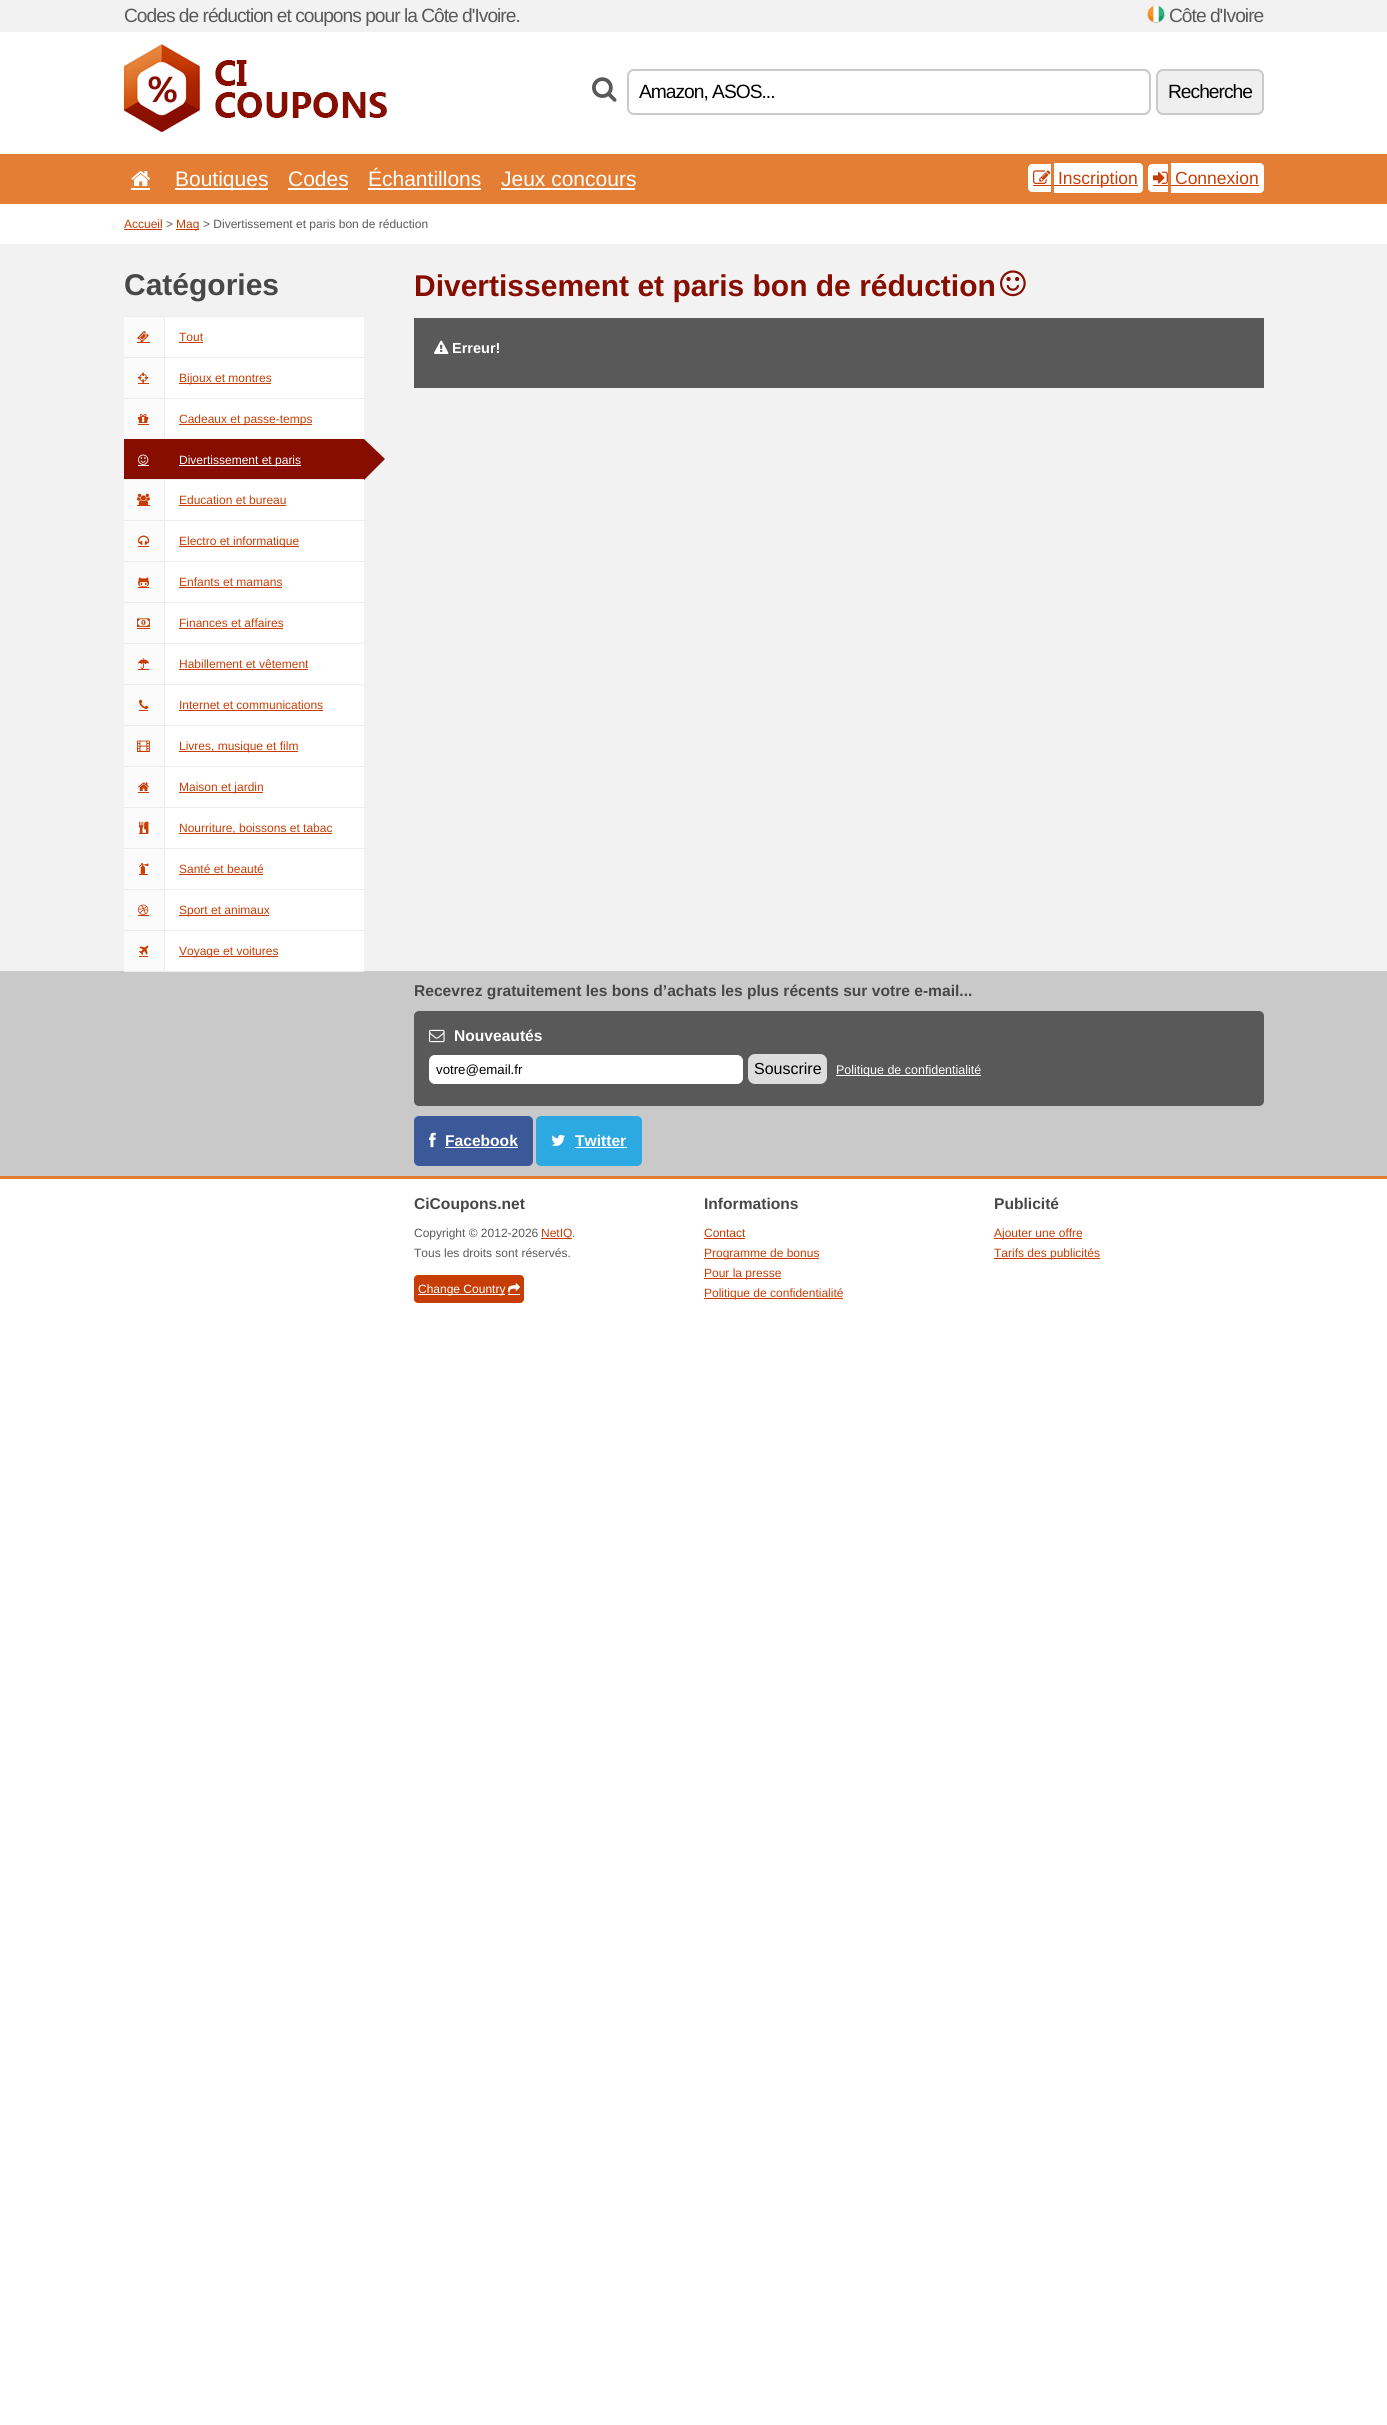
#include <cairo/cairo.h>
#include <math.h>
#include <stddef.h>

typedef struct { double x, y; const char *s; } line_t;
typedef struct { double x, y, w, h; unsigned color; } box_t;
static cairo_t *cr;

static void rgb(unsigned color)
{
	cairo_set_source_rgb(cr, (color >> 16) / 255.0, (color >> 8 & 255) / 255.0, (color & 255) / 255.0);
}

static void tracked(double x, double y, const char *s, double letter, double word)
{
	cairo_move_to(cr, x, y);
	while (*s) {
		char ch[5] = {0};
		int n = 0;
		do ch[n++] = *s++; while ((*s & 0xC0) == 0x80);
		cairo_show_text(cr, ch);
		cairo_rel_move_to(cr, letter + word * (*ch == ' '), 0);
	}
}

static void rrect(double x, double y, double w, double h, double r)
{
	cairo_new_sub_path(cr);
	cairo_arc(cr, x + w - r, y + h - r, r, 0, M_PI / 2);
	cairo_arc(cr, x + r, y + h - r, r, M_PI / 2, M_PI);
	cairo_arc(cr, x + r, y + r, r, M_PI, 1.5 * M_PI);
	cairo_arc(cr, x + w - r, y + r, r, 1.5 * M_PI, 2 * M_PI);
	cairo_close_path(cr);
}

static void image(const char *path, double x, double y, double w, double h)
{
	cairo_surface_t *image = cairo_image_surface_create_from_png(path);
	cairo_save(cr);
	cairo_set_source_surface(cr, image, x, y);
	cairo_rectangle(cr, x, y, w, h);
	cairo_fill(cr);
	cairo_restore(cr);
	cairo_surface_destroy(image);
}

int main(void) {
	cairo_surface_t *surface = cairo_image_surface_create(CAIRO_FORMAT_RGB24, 1387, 2425);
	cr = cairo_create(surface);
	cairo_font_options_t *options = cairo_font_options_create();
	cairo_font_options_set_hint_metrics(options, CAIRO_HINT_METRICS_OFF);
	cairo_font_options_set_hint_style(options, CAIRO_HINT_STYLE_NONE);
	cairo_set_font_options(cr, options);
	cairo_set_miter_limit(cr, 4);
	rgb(0xffffff);
	cairo_paint(cr);
	rgb(0xf2f2f2);
	cairo_rectangle(cr, 0, 0, 1387, 32);
	cairo_fill(cr);
	image("img/1.png", 1147, 5, 18, 18);
	cairo_rectangle(cr, 0, 244, 1387, 727);
	cairo_fill(cr);
	image("img/2.png", 124, 44, 263, 88);
	image("img/3.png", 592, 77, 25, 25);
	rrect(628, 70, 522, 44, 6);
	rgb(0xc9c9c9);
	cairo_stroke(cr);
	rgb(0xefefef);
	rrect(1157, 70, 106, 44, 6);
	cairo_fill_preserve(cr);
	rgb(0xc9c9c9);
	cairo_stroke(cr);
	rgb(0xe47e34);
	cairo_rectangle(cr, 0, 154, 1387, 50);
	cairo_fill(cr);
	image("img/4.png", 131, 171, 19, 15);
	{
		static const box_t items[] = {
			{131, 188, 19, 2, 0xffffff},
			{175, 188, 93, 2, 0xffffff},
			{288, 188, 60, 2, 0xffffff},
			{368, 188, 113, 2, 0xffffff},
			{501, 188, 134, 2, 0xffffff},
		};
		for (size_t i = 0; i < sizeof items / sizeof *items; i++) {
			rgb(items[i].color);
			cairo_rectangle(cr, items[i].x, items[i].y, items[i].w, items[i].h);
			cairo_fill(cr);
		}
	}
	cairo_new_path(cr);
	cairo_move_to(cr, 1032, 164);
	cairo_line_to(cr, 1051, 164);
	cairo_line_to(cr, 1051, 192);
	cairo_line_to(cr, 1032, 192);
	cairo_curve_to(cr, 1030, 192, 1028, 190, 1028, 188);
	cairo_line_to(cr, 1028, 168);
	cairo_curve_to(cr, 1028, 166, 1030, 164, 1032, 164);
	cairo_close_path(cr);
	cairo_fill(cr);
	image("img/5.png", 1033, 170, 18, 14);
	cairo_new_path(cr);
	cairo_move_to(cr, 1054, 163);
	cairo_line_to(cr, 1139, 163);
	cairo_curve_to(cr, 1141, 163, 1143, 165, 1143, 167);
	cairo_line_to(cr, 1143, 189);
	cairo_curve_to(cr, 1143, 191, 1141, 193, 1139, 193);
	cairo_line_to(cr, 1054, 193);
	cairo_close_path(cr);
	cairo_fill(cr);
	rgb(0xc63e05);
	cairo_rectangle(cr, 1033, 185, 18, 1);
	cairo_fill(cr);
	cairo_rectangle(cr, 1054, 185, 84, 1);
	cairo_fill(cr);
	rgb(0xffffff);
	cairo_new_path(cr);
	cairo_move_to(cr, 1152, 164);
	cairo_line_to(cr, 1168, 164);
	cairo_line_to(cr, 1168, 192);
	cairo_line_to(cr, 1152, 192);
	cairo_curve_to(cr, 1150, 192, 1148, 190, 1148, 188);
	cairo_line_to(cr, 1148, 168);
	cairo_curve_to(cr, 1148, 166, 1150, 164, 1152, 164);
	cairo_close_path(cr);
	cairo_fill(cr);
	image("img/6.png", 1153, 171, 15, 13);
	cairo_new_path(cr);
	cairo_move_to(cr, 1171, 163);
	cairo_line_to(cr, 1260, 163);
	cairo_curve_to(cr, 1262, 163, 1264, 165, 1264, 167);
	cairo_line_to(cr, 1264, 189);
	cairo_curve_to(cr, 1264, 191, 1262, 193, 1260, 193);
	cairo_line_to(cr, 1171, 193);
	cairo_close_path(cr);
	cairo_fill(cr);
	{
		static const box_t items[] = {
			{1153, 185, 15, 1, 0xc63e05},
			{1171, 185, 88, 1, 0xc63e05},
			{124, 229, 38, 1, 0xc63e05},
			{176, 229, 23, 1, 0xc63e05},
			{165, 317, 199, 40, 0xffffff},
			{124, 316, 240, 1, 0xededed},
			{124, 317, 40, 40, 0xfbfbfb},
			{164, 317, 1, 40, 0xededed},
		};
		for (size_t i = 0; i < sizeof items / sizeof *items; i++) {
			rgb(items[i].color);
			cairo_rectangle(cr, items[i].x, items[i].y, items[i].w, items[i].h);
			cairo_fill(cr);
		}
	}
	image("img/7.png", 137, 331, 12, 11);
	{
		static const box_t items[] = {
			{137, 342, 13, 1, 0xc63e05},
			{179, 342, 24, 1, 0xc63e05},
			{165, 358, 199, 40, 0xffffff},
			{124, 357, 240, 1, 0xededed},
			{124, 358, 40, 40, 0xfbfbfb},
			{164, 358, 1, 40, 0xededed},
		};
		for (size_t i = 0; i < sizeof items / sizeof *items; i++) {
			rgb(items[i].color);
			cairo_rectangle(cr, items[i].x, items[i].y, items[i].w, items[i].h);
			cairo_fill(cr);
		}
	}
	image("img/8.png", 138, 372, 11, 11);
	{
		static const box_t items[] = {
			{138, 383, 11, 1, 0xc63e05},
			{179, 383, 92, 1, 0xc63e05},
			{165, 399, 199, 40, 0xffffff},
			{124, 398, 240, 1, 0xededed},
			{124, 399, 40, 40, 0xfbfbfb},
			{164, 399, 1, 40, 0xededed},
		};
		for (size_t i = 0; i < sizeof items / sizeof *items; i++) {
			rgb(items[i].color);
			cairo_rectangle(cr, items[i].x, items[i].y, items[i].w, items[i].h);
			cairo_fill(cr);
		}
	}
	image("img/9.png", 138, 414, 11, 9);
	{
		static const box_t items[] = {
			{138, 424, 11, 1, 0xc63e05},
			{179, 424, 133, 1, 0xc63e05},
			{124, 439, 240, 40, 0x870d00},
		};
		for (size_t i = 0; i < sizeof items / sizeof *items; i++) {
			rgb(items[i].color);
			cairo_rectangle(cr, items[i].x, items[i].y, items[i].w, items[i].h);
			cairo_fill(cr);
		}
	}
	image("img/10.png", 138, 454, 11, 11);
	rgb(0xffffff);
	cairo_rectangle(cr, 138, 465, 11, 1);
	cairo_fill(cr);
	cairo_rectangle(cr, 179, 465, 122, 1);
	cairo_fill(cr);
	rgb(0x870d00);
	cairo_new_path(cr);
	cairo_move_to(cr, 364, 439);
	cairo_line_to(cr, 385, 459);
	cairo_line_to(cr, 364, 480);
	cairo_line_to(cr, 343, 459);
	cairo_close_path(cr);
	cairo_fill(cr);
	{
		static const box_t items[] = {
			{165, 480, 199, 40, 0xffffff},
			{124, 479, 240, 1, 0xededed},
			{124, 480, 40, 40, 0xfbfbfb},
			{164, 480, 1, 40, 0xededed},
		};
		for (size_t i = 0; i < sizeof items / sizeof *items; i++) {
			rgb(items[i].color);
			cairo_rectangle(cr, items[i].x, items[i].y, items[i].w, items[i].h);
			cairo_fill(cr);
		}
	}
	image("img/11.png", 137, 493, 13, 12);
	{
		static const box_t items[] = {
			{137, 505, 13, 1, 0xc63e05},
			{179, 505, 107, 1, 0xc63e05},
			{165, 521, 199, 40, 0xffffff},
			{124, 520, 240, 1, 0xededed},
			{124, 521, 40, 40, 0xfbfbfb},
			{164, 521, 1, 40, 0xededed},
		};
		for (size_t i = 0; i < sizeof items / sizeof *items; i++) {
			rgb(items[i].color);
			cairo_rectangle(cr, items[i].x, items[i].y, items[i].w, items[i].h);
			cairo_fill(cr);
		}
	}
	image("img/12.png", 138, 535, 12, 10);
	{
		static const box_t items[] = {
			{138, 546, 11, 1, 0xc63e05},
			{179, 546, 120, 1, 0xc63e05},
			{165, 562, 199, 40, 0xffffff},
			{124, 561, 240, 1, 0xededed},
			{124, 562, 40, 40, 0xfbfbfb},
			{164, 562, 1, 40, 0xededed},
		};
		for (size_t i = 0; i < sizeof items / sizeof *items; i++) {
			rgb(items[i].color);
			cairo_rectangle(cr, items[i].x, items[i].y, items[i].w, items[i].h);
			cairo_fill(cr);
		}
	}
	image("img/13.png", 138, 577, 12, 10);
	{
		static const box_t items[] = {
			{138, 587, 11, 1, 0xc63e05},
			{179, 587, 103, 1, 0xc63e05},
			{165, 603, 199, 40, 0xffffff},
			{124, 602, 240, 1, 0xededed},
			{124, 603, 40, 40, 0xfbfbfb},
			{164, 603, 1, 40, 0xededed},
		};
		for (size_t i = 0; i < sizeof items / sizeof *items; i++) {
			rgb(items[i].color);
			cairo_rectangle(cr, items[i].x, items[i].y, items[i].w, items[i].h);
			cairo_fill(cr);
		}
	}
	image("img/14.png", 137, 618, 13, 9);
	{
		static const box_t items[] = {
			{137, 628, 13, 1, 0xc63e05},
			{179, 628, 104, 1, 0xc63e05},
			{165, 644, 199, 40, 0xffffff},
			{124, 643, 240, 1, 0xededed},
			{124, 644, 40, 40, 0xfbfbfb},
			{164, 644, 1, 40, 0xededed},
		};
		for (size_t i = 0; i < sizeof items / sizeof *items; i++) {
			rgb(items[i].color);
			cairo_rectangle(cr, items[i].x, items[i].y, items[i].w, items[i].h);
			cairo_fill(cr);
		}
	}
	image("img/15.png", 138, 658, 12, 11);
	{
		static const box_t items[] = {
			{138, 669, 11, 1, 0xc63e05},
			{179, 669, 129, 1, 0xc63e05},
			{165, 685, 199, 40, 0xffffff},
			{124, 684, 240, 1, 0xededed},
			{124, 685, 40, 40, 0xfbfbfb},
			{164, 685, 1, 40, 0xededed},
		};
		for (size_t i = 0; i < sizeof items / sizeof *items; i++) {
			rgb(items[i].color);
			cairo_rectangle(cr, items[i].x, items[i].y, items[i].w, items[i].h);
			cairo_fill(cr);
		}
	}
	image("img/16.png", 139, 699, 10, 10);
	{
		static const box_t items[] = {
			{139, 710, 9, 1, 0xc63e05},
			{179, 710, 144, 1, 0xc63e05},
			{165, 726, 199, 40, 0xffffff},
			{124, 725, 240, 1, 0xededed},
			{124, 726, 40, 40, 0xfbfbfb},
			{164, 726, 1, 40, 0xededed},
		};
		for (size_t i = 0; i < sizeof items / sizeof *items; i++) {
			rgb(items[i].color);
			cairo_rectangle(cr, items[i].x, items[i].y, items[i].w, items[i].h);
			cairo_fill(cr);
		}
	}
	image("img/17.png", 137, 740, 13, 11);
	{
		static const box_t items[] = {
			{137, 751, 13, 1, 0xc63e05},
			{179, 751, 119, 1, 0xc63e05},
			{165, 767, 199, 40, 0xffffff},
			{124, 766, 240, 1, 0xededed},
			{124, 767, 40, 40, 0xfbfbfb},
			{164, 767, 1, 40, 0xededed},
		};
		for (size_t i = 0; i < sizeof items / sizeof *items; i++) {
			rgb(items[i].color);
			cairo_rectangle(cr, items[i].x, items[i].y, items[i].w, items[i].h);
			cairo_fill(cr);
		}
	}
	image("img/18.png", 138, 782, 11, 9);
	{
		static const box_t items[] = {
			{138, 792, 11, 1, 0xc63e05},
			{179, 792, 84, 1, 0xc63e05},
			{165, 808, 199, 40, 0xffffff},
			{124, 807, 240, 1, 0xededed},
			{124, 808, 40, 40, 0xfbfbfb},
			{164, 808, 1, 40, 0xededed},
			{139, 833, 9, 1, 0xc63e05},
		};
		for (size_t i = 0; i < sizeof items / sizeof *items; i++) {
			rgb(items[i].color);
			cairo_rectangle(cr, items[i].x, items[i].y, items[i].w, items[i].h);
			cairo_fill(cr);
		}
	}
	image("img/19.png", 139, 821, 10, 13);
	{
		static const box_t items[] = {
			{179, 833, 153, 1, 0xc63e05},
			{165, 849, 199, 40, 0xffffff},
			{124, 848, 240, 1, 0xededed},
			{124, 849, 40, 40, 0xfbfbfb},
			{164, 849, 1, 40, 0xededed},
		};
		for (size_t i = 0; i < sizeof items / sizeof *items; i++) {
			rgb(items[i].color);
			cairo_rectangle(cr, items[i].x, items[i].y, items[i].w, items[i].h);
			cairo_fill(cr);
		}
	}
	image("img/20.png", 139, 863, 10, 11);
	{
		static const box_t items[] = {
			{139, 874, 9, 1, 0xc63e05},
			{179, 874, 84, 1, 0xc63e05},
			{165, 890, 199, 40, 0xffffff},
			{124, 889, 240, 1, 0xededed},
			{124, 890, 40, 40, 0xfbfbfb},
			{164, 890, 1, 40, 0xededed},
		};
		for (size_t i = 0; i < sizeof items / sizeof *items; i++) {
			rgb(items[i].color);
			cairo_rectangle(cr, items[i].x, items[i].y, items[i].w, items[i].h);
			cairo_fill(cr);
		}
	}
	image("img/21.png", 138, 904, 11, 11);
	{
		static const box_t items[] = {
			{138, 915, 11, 1, 0xc63e05},
			{179, 915, 90, 1, 0xc63e05},
			{165, 931, 199, 40, 0xffffff},
			{124, 930, 240, 1, 0xededed},
			{0, 971, 1387, 205, 0xc9c9c9},
			{124, 971, 240, 1, 0xededed},
			{124, 931, 40, 40, 0xfbfbfb},
			{164, 931, 1, 40, 0xededed},
		};
		for (size_t i = 0; i < sizeof items / sizeof *items; i++) {
			rgb(items[i].color);
			cairo_rectangle(cr, items[i].x, items[i].y, items[i].w, items[i].h);
			cairo_fill(cr);
		}
	}
	image("img/22.png", 139, 945, 10, 10);
	rgb(0xc63e05);
	cairo_rectangle(cr, 139, 956, 9, 1);
	cairo_fill(cr);
	cairo_rectangle(cr, 179, 956, 99, 1);
	cairo_fill(cr);
	image("img/23.png", 1000, 270, 26, 27);
	rgb(0x595959);
	cairo_rectangle(cr, 414, 318, 850, 70);
	cairo_fill(cr);
	image("img/24.png", 434, 340, 15, 14);
	rrect(414, 1011, 850, 95, 5);
	cairo_fill(cr);
	image("img/25.png", 429, 1029, 16, 14);
	rgb(0xffffff);
	rrect(429.5, 1055.5, 313, 28, 5.5);
	cairo_fill_preserve(cr);
	cairo_set_line_width(cr, 1);
	cairo_stroke(cr);
	rgb(0xdddddd);
	rrect(748, 1054, 79, 30, 7);
	cairo_fill(cr);
	rgb(0xffffff);
	cairo_rectangle(cr, 836, 1075, 145, 1);
	cairo_fill(cr);
	rgb(0x3b5998);
	rrect(414, 1116, 119, 50, 5);
	cairo_fill(cr);
	image("img/26.png", 429, 1132, 7, 16);
	rgb(0xffffff);
	cairo_rectangle(cr, 445, 1147, 73, 1);
	cairo_fill(cr);
	rgb(0x2ca9e1);
	rrect(536, 1116, 106, 50, 5);
	cairo_fill(cr);
	image("img/27.png", 551, 1134, 14, 12);
	{
		static const box_t items[] = {
			{575, 1147, 52, 1, 0xffffff},
			{0, 1176, 1387, 3, 0xe47e34},
			{541, 1238, 31, 1, 0xc63e05},
		};
		for (size_t i = 0; i < sizeof items / sizeof *items; i++) {
			rgb(items[i].color);
			cairo_rectangle(cr, items[i].x, items[i].y, items[i].w, items[i].h);
			cairo_fill(cr);
		}
	}
	rrect(414, 1275, 110, 28, 4);
	cairo_fill(cr);
	rgb(0xffffff);
	cairo_rectangle(cr, 418, 1294, 87, 1);
	cairo_fill(cr);
	image("img/28.png", 508, 1283, 12, 11);
	{
		static const box_t items[] = {
			{508, 1294, 12, 1, 0xffffff},
			{704, 1238, 41, 1, 0xc63e05},
			{704, 1258, 115, 1, 0xc63e05},
			{704, 1278, 77, 1, 0xc63e05},
			{704, 1298, 139, 1, 0xc63e05},
			{994, 1238, 88, 1, 0xc63e05},
			{994, 1258, 106, 1, 0xc63e05},
		};
		for (size_t i = 0; i < sizeof items / sizeof *items; i++) {
			rgb(items[i].color);
			cairo_rectangle(cr, items[i].x, items[i].y, items[i].w, items[i].h);
			cairo_fill(cr);
		}
	}
	cairo_select_font_face(cr, "Liberation Sans", CAIRO_FONT_SLANT_NORMAL, CAIRO_FONT_WEIGHT_NORMAL);
	cairo_set_font_size(cr, 19.2);
	rgb(0x595959);
	tracked(124, 22, "Codes de réduction et coupons pour la Côte d'Ivoire.", -1, 0);
	tracked(1169, 22, "Côte d'Ivoire", -1, 0);
	rgb(0x000000);
	tracked(639, 98, "Amazon, ASOS...", -1, 0);
	tracked(1168, 98, "Recherche", -1, 0);
	cairo_set_font_size(cr, 21);
	rgb(0xffffff);
	{
		static const line_t items[] = {
			{175, 186, "Boutiques"},
			{288, 186, "Codes"},
			{368, 186, "Échantillons"},
			{501, 186, "Jeux concours"},
		};
		for (size_t i = 0; i < sizeof items / sizeof *items; i++) {
			cairo_move_to(cr, items[i].x, items[i].y);
			cairo_show_text(cr, items[i].s);
		}
	}
	cairo_set_font_size(cr, 17.5);
	rgb(0xc63e05);
	cairo_move_to(cr, 1058, 184);
	cairo_show_text(cr, "Inscription");
	cairo_move_to(cr, 1175, 184);
	cairo_show_text(cr, "Connexion");
	cairo_set_font_size(cr, 12);
	cairo_move_to(cr, 124, 228);
	cairo_show_text(cr, "Accueil");
	rgb(0x595959);
	cairo_move_to(cr, 166, 228);
	cairo_show_text(cr, ">");
	rgb(0xc63e05);
	cairo_move_to(cr, 176, 228);
	cairo_show_text(cr, "Mag");
	rgb(0x595959);
	cairo_move_to(cr, 203, 228);
	cairo_show_text(cr, "> Divertissement et paris bon de réduction");
	cairo_select_font_face(cr, "Liberation Sans", CAIRO_FONT_SLANT_NORMAL, CAIRO_FONT_WEIGHT_BOLD);
	cairo_set_font_size(cr, 30);
	rgb(0x474747);
	cairo_move_to(cr, 124, 295);
	cairo_show_text(cr, "Catégories");
	cairo_select_font_face(cr, "Liberation Sans", CAIRO_FONT_SLANT_NORMAL, CAIRO_FONT_WEIGHT_NORMAL);
	cairo_set_font_size(cr, 12);
	rgb(0xc63e05);
	{
		static const line_t items[] = {
			{179, 341, "Tout"},
			{179, 382, "Bijoux et montres"},
			{179, 423, "Cadeaux et passe-temps"},
		};
		for (size_t i = 0; i < sizeof items / sizeof *items; i++) {
			cairo_move_to(cr, items[i].x, items[i].y);
			cairo_show_text(cr, items[i].s);
		}
	}
	rgb(0xffffff);
	cairo_move_to(cr, 179, 464);
	cairo_show_text(cr, "Divertissement et paris");
	rgb(0xc63e05);
	{
		static const line_t items[] = {
			{179, 504, "Education et bureau"},
			{179, 545, "Electro et informatique"},
			{179, 586, "Enfants et mamans"},
			{179, 627, "Finances et affaires"},
			{179, 668, "Habillement et vêtement"},
			{179, 709, "Internet et communications"},
			{179, 750, "Livres, musique et film"},
			{179, 791, "Maison et jardin"},
			{179, 832, "Nourriture, boissons et tabac"},
			{179, 873, "Santé et beauté"},
			{179, 914, "Sport et animaux"},
			{179, 955, "Voyage et voitures"},
		};
		for (size_t i = 0; i < sizeof items / sizeof *items; i++) {
			cairo_move_to(cr, items[i].x, items[i].y);
			cairo_show_text(cr, items[i].s);
		}
	}
	cairo_select_font_face(cr, "Liberation Sans", CAIRO_FONT_SLANT_NORMAL, CAIRO_FONT_WEIGHT_BOLD);
	cairo_set_font_size(cr, 30);
	rgb(0x870d00);
	cairo_move_to(cr, 414, 296);
	cairo_show_text(cr, "Divertissement et paris bon de réduction");
	cairo_set_font_size(cr, 14.5);
	rgb(0xffffff);
	cairo_move_to(cr, 452, 353);
	cairo_show_text(cr, "Erreur!");
	cairo_set_font_size(cr, 15.6);
	rgb(0x474747);
	cairo_move_to(cr, 414, 996);
	cairo_show_text(cr, "Recevrez gratuitement les bons d’achats les plus récents sur votre e-mail...");
	rgb(0xffffff);
	cairo_move_to(cr, 454, 1041);
	cairo_show_text(cr, "Nouveautés");
	cairo_select_font_face(cr, "Liberation Sans", CAIRO_FONT_SLANT_NORMAL, CAIRO_FONT_WEIGHT_NORMAL);
	cairo_set_font_size(cr, 13.25);
	rgb(0x000000);
	cairo_move_to(cr, 436, 1074);
	cairo_show_text(cr, "votre@email.fr");
	cairo_set_font_size(cr, 16);
	cairo_move_to(cr, 754, 1074);
	cairo_show_text(cr, "Souscrire");
	cairo_set_font_size(cr, 12.5);
	rgb(0xffffff);
	cairo_move_to(cr, 836, 1074);
	cairo_show_text(cr, "Politique de confidentialité");
	cairo_select_font_face(cr, "Liberation Sans", CAIRO_FONT_SLANT_NORMAL, CAIRO_FONT_WEIGHT_BOLD);
	cairo_set_font_size(cr, 15.6);
	cairo_move_to(cr, 445, 1146);
	cairo_show_text(cr, "Facebook");
	cairo_move_to(cr, 575, 1146);
	cairo_show_text(cr, "Twitter");
	rgb(0x474747);
	cairo_move_to(cr, 414, 1209);
	cairo_show_text(cr, "CiCoupons.net");
	cairo_select_font_face(cr, "Liberation Sans", CAIRO_FONT_SLANT_NORMAL, CAIRO_FONT_WEIGHT_NORMAL);
	cairo_set_font_size(cr, 12);
	rgb(0x595959);
	cairo_move_to(cr, 414, 1237);
	cairo_show_text(cr, "Copyright © 2012-2026");
	rgb(0xc63e05);
	cairo_move_to(cr, 541, 1237);
	cairo_show_text(cr, "NetIQ");
	rgb(0x595959);
	cairo_move_to(cr, 572, 1237);
	cairo_show_text(cr, ".");
	cairo_move_to(cr, 414, 1257);
	cairo_show_text(cr, "Tous les droits sont réservés.");
	rgb(0xffffff);
	cairo_move_to(cr, 418, 1293);
	cairo_show_text(cr, "Change Country");
	cairo_select_font_face(cr, "Liberation Sans", CAIRO_FONT_SLANT_NORMAL, CAIRO_FONT_WEIGHT_BOLD);
	cairo_set_font_size(cr, 15.6);
	rgb(0x474747);
	cairo_move_to(cr, 704, 1209);
	cairo_show_text(cr, "Informations");
	cairo_select_font_face(cr, "Liberation Sans", CAIRO_FONT_SLANT_NORMAL, CAIRO_FONT_WEIGHT_NORMAL);
	cairo_set_font_size(cr, 12);
	rgb(0xc63e05);
	{
		static const line_t items[] = {
			{704, 1237, "Contact"},
			{704, 1257, "Programme de bonus"},
			{704, 1277, "Pour la presse"},
			{704, 1297, "Politique de confidentialité"},
		};
		for (size_t i = 0; i < sizeof items / sizeof *items; i++) {
			cairo_move_to(cr, items[i].x, items[i].y);
			cairo_show_text(cr, items[i].s);
		}
	}
	cairo_select_font_face(cr, "Liberation Sans", CAIRO_FONT_SLANT_NORMAL, CAIRO_FONT_WEIGHT_BOLD);
	cairo_set_font_size(cr, 15.6);
	rgb(0x474747);
	cairo_move_to(cr, 994, 1209);
	cairo_show_text(cr, "Publicité");
	cairo_select_font_face(cr, "Liberation Sans", CAIRO_FONT_SLANT_NORMAL, CAIRO_FONT_WEIGHT_NORMAL);
	cairo_set_font_size(cr, 12);
	rgb(0xc63e05);
	cairo_move_to(cr, 994, 1237);
	cairo_show_text(cr, "Ajouter une offre");
	cairo_move_to(cr, 994, 1257);
	cairo_show_text(cr, "Tarifs des publicités");
	cairo_surface_write_to_png(surface, "page.png");
	cairo_font_options_destroy(options);
	cairo_destroy(cr);
	cairo_surface_destroy(surface);
	return 0;
}
